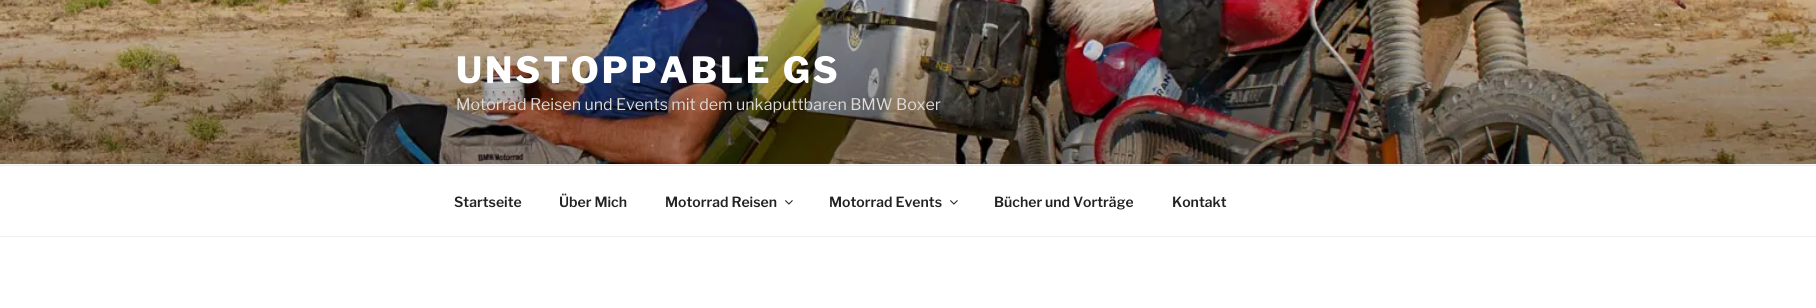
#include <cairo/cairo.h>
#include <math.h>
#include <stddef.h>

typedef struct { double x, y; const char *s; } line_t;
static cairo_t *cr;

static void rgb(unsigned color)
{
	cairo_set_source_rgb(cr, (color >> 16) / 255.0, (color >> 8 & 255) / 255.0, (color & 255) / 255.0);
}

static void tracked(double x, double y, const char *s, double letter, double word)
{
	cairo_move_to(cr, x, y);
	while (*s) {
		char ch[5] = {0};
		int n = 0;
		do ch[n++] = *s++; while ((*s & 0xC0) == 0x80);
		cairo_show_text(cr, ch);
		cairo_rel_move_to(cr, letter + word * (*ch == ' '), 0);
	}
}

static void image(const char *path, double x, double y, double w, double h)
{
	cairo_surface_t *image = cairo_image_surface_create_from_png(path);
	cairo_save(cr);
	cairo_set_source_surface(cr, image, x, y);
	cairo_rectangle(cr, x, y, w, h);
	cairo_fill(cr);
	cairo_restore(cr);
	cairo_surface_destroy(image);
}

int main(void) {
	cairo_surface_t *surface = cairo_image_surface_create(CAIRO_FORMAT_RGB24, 1816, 308);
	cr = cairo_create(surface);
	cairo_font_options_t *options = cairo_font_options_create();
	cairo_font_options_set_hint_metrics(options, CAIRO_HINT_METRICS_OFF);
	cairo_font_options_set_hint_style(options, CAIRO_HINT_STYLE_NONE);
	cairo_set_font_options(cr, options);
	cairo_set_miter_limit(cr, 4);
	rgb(0xffffff);
	cairo_paint(cr);
	rgb(0xfafafa);
	cairo_rectangle(cr, 0, 164, 1816, 1);
	cairo_fill(cr);
	image("img/1.png", 0, 0, 1816, 164);
	rgb(0xeeeeee);
	cairo_rectangle(cr, 0, 165, 1816, 1);
	cairo_fill(cr);
	cairo_rectangle(cr, 0, 236, 1816, 1);
	cairo_fill(cr);
	image("img/2.png", 785, 200, 8, 5);
	image("img/2.png", 950, 200, 8, 5);
	cairo_select_font_face(cr, "Libre Franklin Thin", CAIRO_FONT_SLANT_NORMAL, CAIRO_FONT_WEIGHT_NORMAL);
	cairo_set_font_size(cr, 36);
	rgb(0xffffff);
	tracked(456, 83, "UNSTOPPABLE GS", 2.9, 0);
	cairo_select_font_face(cr, "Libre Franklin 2 Thin", CAIRO_FONT_SLANT_NORMAL, CAIRO_FONT_WEIGHT_NORMAL);
	cairo_set_font_size(cr, 16);
	rgb(0xdddad8);
	cairo_move_to(cr, 456, 110);
	cairo_show_text(cr, "Motorrad Reisen und Events mit dem unkaputtbaren BMW Boxer");
	cairo_select_font_face(cr, "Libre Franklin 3 Thin", CAIRO_FONT_SLANT_NORMAL, CAIRO_FONT_WEIGHT_NORMAL);
	cairo_set_font_size(cr, 14);
	rgb(0x222222);
	{
		static const line_t items[] = {
			{454, 207, "Startseite"},
			{559, 207, "Über Mich"},
			{665, 207, "Motorrad Reisen"},
			{829, 207, "Motorrad Events"},
			{994, 207, "Bücher und Vorträge"},
			{1172, 207, "Kontakt"},
		};
		for (size_t i = 0; i < sizeof items / sizeof *items; i++) {
			cairo_move_to(cr, items[i].x, items[i].y);
			cairo_show_text(cr, items[i].s);
		}
	}
	cairo_surface_write_to_png(surface, "page.png");
	cairo_font_options_destroy(options);
	cairo_destroy(cr);
	cairo_surface_destroy(surface);
	return 0;
}
